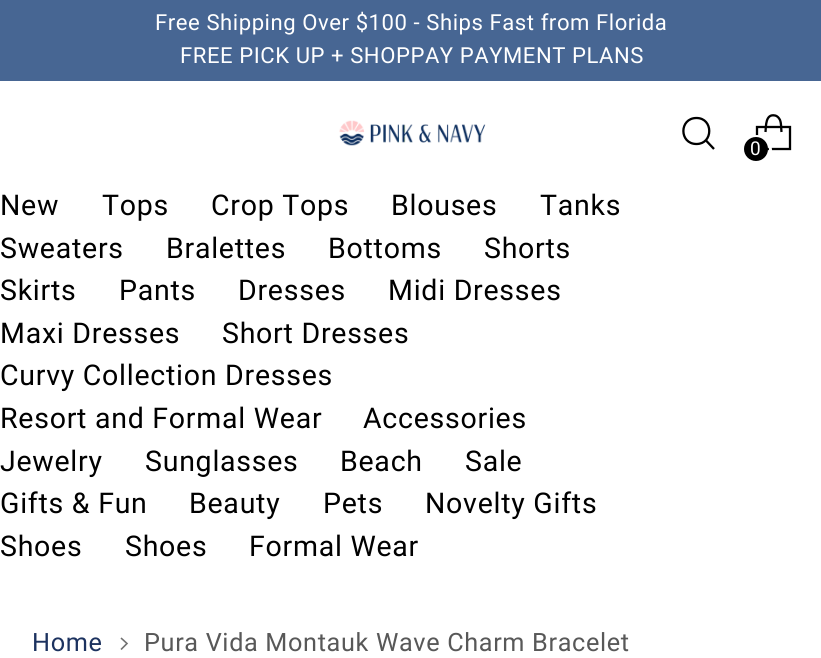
#include <cairo/cairo.h>
#include <math.h>
#include <stddef.h>

typedef struct { double x, y; const char *s; } line_t;
static cairo_t *cr;

static void rgb(unsigned color)
{
	cairo_set_source_rgb(cr, (color >> 16) / 255.0, (color >> 8 & 255) / 255.0, (color & 255) / 255.0);
}

static void tracked(double x, double y, const char *s, double letter, double word)
{
	cairo_move_to(cr, x, y);
	while (*s) {
		char ch[5] = {0};
		int n = 0;
		do ch[n++] = *s++; while ((*s & 0xC0) == 0x80);
		cairo_show_text(cr, ch);
		cairo_rel_move_to(cr, letter + word * (*ch == ' '), 0);
	}
}

static void image(const char *path, double x, double y, double w, double h)
{
	cairo_surface_t *image = cairo_image_surface_create_from_png(path);
	cairo_save(cr);
	cairo_set_source_surface(cr, image, x, y);
	cairo_rectangle(cr, x, y, w, h);
	cairo_fill(cr);
	cairo_restore(cr);
	cairo_surface_destroy(image);
}

int main(void) {
	cairo_surface_t *surface = cairo_image_surface_create(CAIRO_FORMAT_RGB24, 821, 658);
	cr = cairo_create(surface);
	cairo_font_options_t *options = cairo_font_options_create();
	cairo_font_options_set_hint_metrics(options, CAIRO_HINT_METRICS_OFF);
	cairo_font_options_set_hint_style(options, CAIRO_HINT_STYLE_NONE);
	cairo_set_font_options(cr, options);
	cairo_set_miter_limit(cr, 4);
	rgb(0xffffff);
	cairo_paint(cr);
	rgb(0x476693);
	cairo_rectangle(cr, 0, 0, 821, 81);
	cairo_fill(cr);
	image("img/1.png", 339, 120, 147, 26);
	cairo_new_path(cr);
	cairo_move_to(cr, 696.5, 144);
	cairo_curve_to(cr, 713.5, 144, 713.5, 118, 696.5, 118);
	cairo_curve_to(cr, 679, 118, 679, 144, 696.5, 144);
	cairo_close_path(cr);
	rgb(0x000000);
	cairo_set_line_width(cr, 2.3);
	cairo_set_line_cap(cr, CAIRO_LINE_CAP_ROUND);
	cairo_stroke(cr);
	cairo_new_path(cr);
	cairo_move_to(cr, 706, 140.5);
	cairo_line_to(cr, 714, 149);
	cairo_set_line_cap(cr, CAIRO_LINE_CAP_BUTT);
	cairo_stroke(cr);
	cairo_new_path(cr);
	cairo_move_to(cr, 781.5, 132);
	cairo_curve_to(cr, 781, 128, 781.5, 124, 780, 120);
	cairo_curve_to(cr, 779, 118, 777.5, 116, 775, 115.5);
	cairo_curve_to(cr, 765.5, 113.5, 766, 126, 765.5, 132);
	cairo_set_line_join(cr, CAIRO_LINE_JOIN_BEVEL);
	cairo_stroke(cr);
	cairo_new_path(cr);
	cairo_move_to(cr, 790, 149);
	cairo_line_to(cr, 790, 127);
	cairo_line_to(cr, 757, 127);
	cairo_line_to(cr, 757, 149);
	cairo_close_path(cr);
	cairo_set_line_join(cr, CAIRO_LINE_JOIN_MITER);
	cairo_stroke(cr);
	cairo_arc(cr, 757, 150, 13.5, 0, 2 * M_PI);
	rgb(0xffffff);
	cairo_set_line_width(cr, 3);
	cairo_stroke(cr);
	rgb(0x000000);
	cairo_arc(cr, 756, 149, 12, 0, 2 * M_PI);
	cairo_fill(cr);
	cairo_new_path(cr);
	cairo_move_to(cr, 121, 649.5);
	cairo_line_to(cr, 127, 643.5);
	cairo_line_to(cr, 121, 638);
	rgb(0x707070);
	cairo_set_line_width(cr, 1.6);
	cairo_stroke(cr);
	cairo_select_font_face(cr, "Roboto", CAIRO_FONT_SLANT_NORMAL, CAIRO_FONT_WEIGHT_NORMAL);
	cairo_set_font_size(cr, 22.1);
	rgb(0xffffff);
	tracked(155, 30, "Free Shipping Over $100 - Ships Fast from Florida", 0.55, 0);
	tracked(180, 63, "FREE PICK UP + SHOPPAY PAYMENT PLANS", 0.55, 0);
	cairo_set_font_size(cr, 19);
	tracked(750, 155, "0", 0.75, 0);
	cairo_set_font_size(cr, 28.5);
	rgb(0x000000);
	{
		static const line_t items[] = {
			{0, 215, "New"},
			{102, 215, "Tops"},
			{211, 215, "Crop Tops"},
			{391, 215, "Blouses"},
			{540, 215, "Tanks"},
			{0, 258, "Sweaters"},
			{166, 258, "Bralettes"},
			{328, 258, "Bottoms"},
			{484, 258, "Shorts"},
			{0, 300, "Skirts"},
			{119, 300, "Pants"},
			{238, 300, "Dresses"},
			{388, 300, "Midi Dresses"},
			{0, 343, "Maxi Dresses"},
			{222, 343, "Short Dresses"},
			{0, 385, "Curvy Collection Dresses"},
			{0, 428, "Resort and Formal Wear"},
			{363, 428, "Accessories"},
			{0, 471, "Jewelry"},
			{145, 471, "Sunglasses"},
			{340, 471, "Beach"},
			{465, 471, "Sale"},
			{0, 513, "Gifts & Fun"},
			{189, 513, "Beauty"},
			{323, 513, "Pets"},
			{425, 513, "Novelty Gifts"},
			{0, 556, "Shoes"},
			{125, 556, "Shoes"},
			{249, 556, "Formal Wear"},
		};
		for (size_t i = 0; i < sizeof items / sizeof *items; i++) {
			tracked(items[i].x, items[i].y, items[i].s, 0.75, 0);
		}
	}
	cairo_set_font_size(cr, 25.25);
	rgb(0x1c325f);
	tracked(32, 651, "Home", 0.65, 0);
	rgb(0x585858);
	tracked(144, 651, "Pura Vida Montauk Wave Charm Bracelet", 0.65, 0);
	cairo_surface_write_to_png(surface, "page.png");
	cairo_font_options_destroy(options);
	cairo_destroy(cr);
	cairo_surface_destroy(surface);
	return 0;
}
